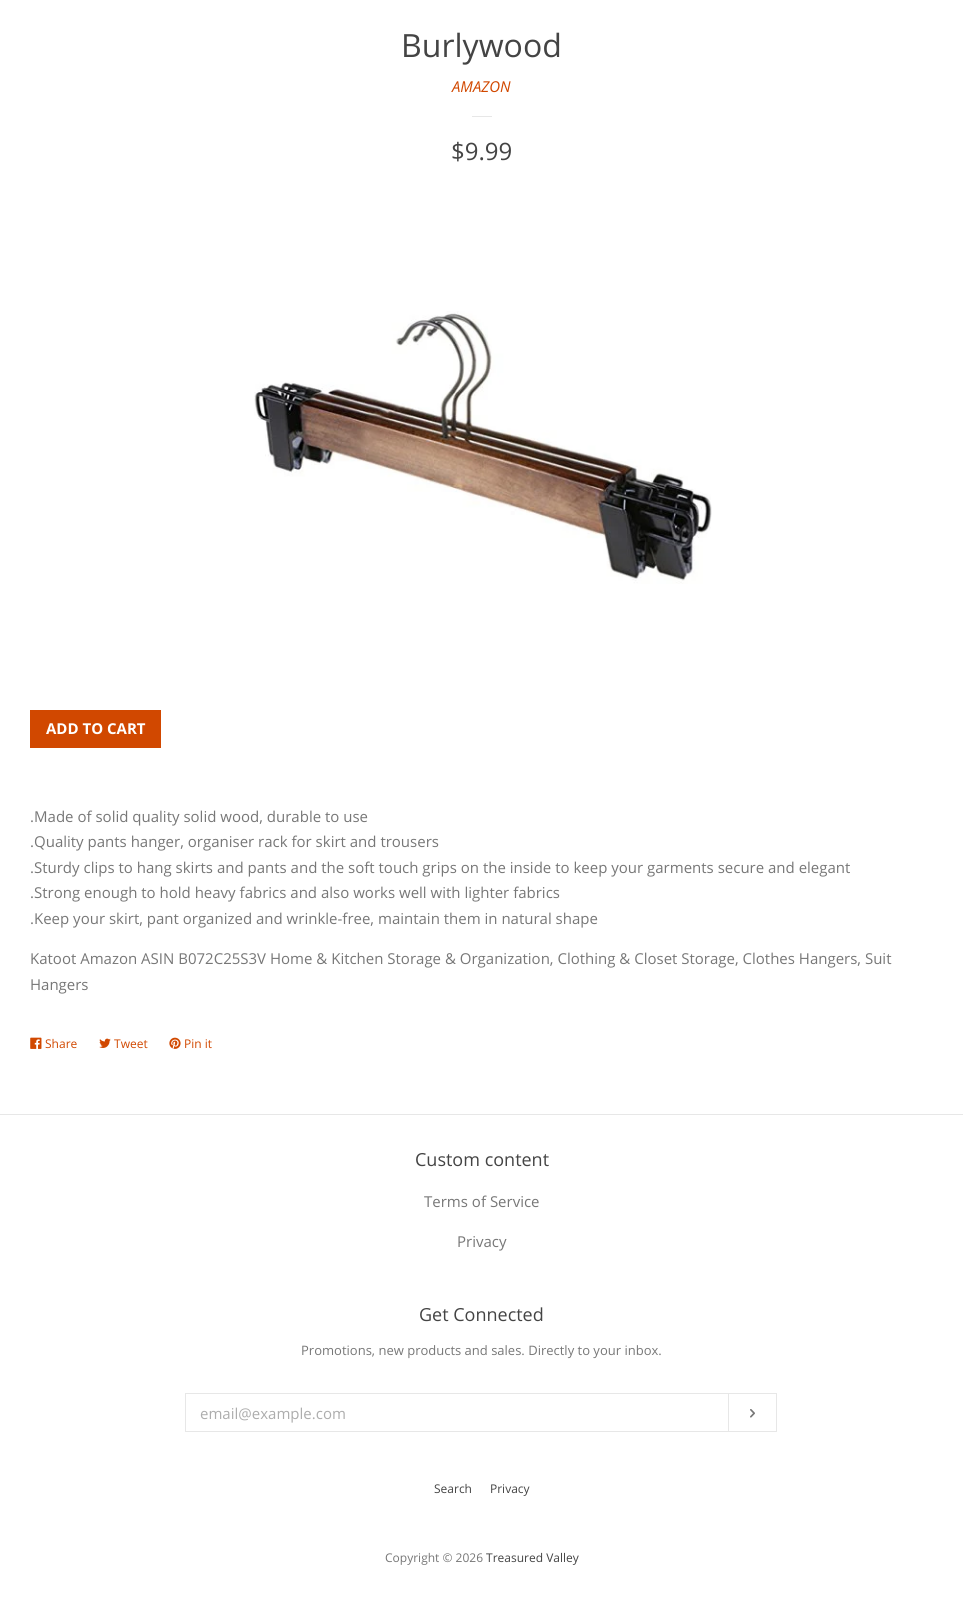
#include <cairo/cairo.h>
#include <math.h>
#include <stddef.h>

typedef struct { double x, y; const char *s; } line_t;
static cairo_t *cr;

static void rgb(unsigned color)
{
	cairo_set_source_rgb(cr, (color >> 16) / 255.0, (color >> 8 & 255) / 255.0, (color & 255) / 255.0);
}

static void image(const char *path, double x, double y, double w, double h)
{
	cairo_surface_t *image = cairo_image_surface_create_from_png(path);
	cairo_save(cr);
	cairo_set_source_surface(cr, image, x, y);
	cairo_rectangle(cr, x, y, w, h);
	cairo_fill(cr);
	cairo_restore(cr);
	cairo_surface_destroy(image);
}

int main(void) {
	cairo_surface_t *surface = cairo_image_surface_create(CAIRO_FORMAT_RGB24, 963, 1600);
	cr = cairo_create(surface);
	cairo_font_options_t *options = cairo_font_options_create();
	cairo_font_options_set_hint_metrics(options, CAIRO_HINT_METRICS_OFF);
	cairo_font_options_set_hint_style(options, CAIRO_HINT_STYLE_NONE);
	cairo_set_font_options(cr, options);
	cairo_set_miter_limit(cr, 4);
	rgb(0xffffff);
	cairo_paint(cr);
	rgb(0xe7e7e7);
	cairo_rectangle(cr, 472, 116, 20, 1);
	cairo_fill(cr);
	image("img/1.png", 254, 311, 458, 273);
	rgb(0xd14800);
	cairo_rectangle(cr, 30, 710, 131, 38);
	cairo_fill(cr);
	image("img/2.png", 30, 1037, 12, 12);
	image("img/3.png", 99, 1038, 12, 10);
	image("img/4.png", 169, 1037, 12, 12);
	rgb(0xe7e7e7);
	cairo_rectangle(cr, 0, 1114, 963, 1);
	cairo_fill(cr);
	cairo_rectangle(cr, 185.5, 1393.5, 591, 38);
	cairo_set_line_width(cr, 1);
	cairo_stroke(cr);
	cairo_rectangle(cr, 728, 1394, 1, 37);
	cairo_fill(cr);
	image("img/5.png", 750, 1409, 5, 9);
	cairo_select_font_face(cr, "Open Sans", CAIRO_FONT_SLANT_NORMAL, CAIRO_FONT_WEIGHT_NORMAL);
	cairo_set_font_size(cr, 32);
	rgb(0x444444);
	cairo_move_to(cr, 401, 57);
	cairo_show_text(cr, "Burlywood");
	cairo_select_font_face(cr, "Open Sans", CAIRO_FONT_SLANT_ITALIC, CAIRO_FONT_WEIGHT_NORMAL);
	cairo_set_font_size(cr, 15);
	rgb(0xd14800);
	cairo_move_to(cr, 452, 92);
	cairo_show_text(cr, "AMAZON");
	cairo_select_font_face(cr, "Open Sans", CAIRO_FONT_SLANT_NORMAL, CAIRO_FONT_WEIGHT_NORMAL);
	cairo_set_font_size(cr, 24);
	rgb(0x444444);
	cairo_move_to(cr, 451, 160);
	cairo_show_text(cr, "$9.99");
	cairo_select_font_face(cr, "Open Sans", CAIRO_FONT_SLANT_NORMAL, CAIRO_FONT_WEIGHT_BOLD);
	cairo_set_font_size(cr, 15);
	rgb(0xffffff);
	cairo_move_to(cr, 46, 734);
	cairo_show_text(cr, "ADD TO CART");
	cairo_select_font_face(cr, "Open Sans", CAIRO_FONT_SLANT_NORMAL, CAIRO_FONT_WEIGHT_NORMAL);
	rgb(0x777777);
	{
		static const line_t items[] = {
			{30, 822, ".Made of solid quality solid wood, durable to use"},
			{30, 847, ".Quality pants hanger, organiser rack for skirt and trousers"},
			{30, 873, ".Sturdy clips to hang skirts and pants and the soft touch grips on the inside to keep your garments secure and elegant"},
			{30, 898, ".Strong enough to hold heavy fabrics and also works well with lighter fabrics"},
			{30, 924, ".Keep your skirt, pant organized and wrinkle-free, maintain them in natural shape"},
			{30, 964, "Katoot Amazon ASIN B072C25S3V Home & Kitchen Storage & Organization, Clothing & Closet Storage, Clothes Hangers, Suit"},
			{30, 990, "Hangers"},
		};
		for (size_t i = 0; i < sizeof items / sizeof *items; i++) {
			cairo_move_to(cr, items[i].x, items[i].y);
			cairo_show_text(cr, items[i].s);
		}
	}
	cairo_set_font_size(cr, 12);
	rgb(0xd14800);
	{
		static const line_t items[] = {
			{45, 1048, "Share"},
			{114, 1048, "Tweet"},
			{184, 1048, "Pin it"},
		};
		for (size_t i = 0; i < sizeof items / sizeof *items; i++) {
			cairo_move_to(cr, items[i].x, items[i].y);
			cairo_show_text(cr, items[i].s);
		}
	}
	cairo_set_font_size(cr, 18);
	rgb(0x444444);
	cairo_move_to(cr, 415, 1166);
	cairo_show_text(cr, "Custom content");
	cairo_set_font_size(cr, 15);
	rgb(0x777777);
	cairo_move_to(cr, 424, 1207);
	cairo_show_text(cr, "Terms of Service");
	cairo_move_to(cr, 457, 1247);
	cairo_show_text(cr, "Privacy");
	cairo_set_font_size(cr, 18);
	rgb(0x444444);
	cairo_move_to(cr, 419, 1321);
	cairo_show_text(cr, "Get Connected");
	cairo_set_font_size(cr, 13);
	rgb(0x777777);
	cairo_move_to(cr, 301, 1355);
	cairo_show_text(cr, "Promotions, new products and sales. Directly to your inbox.");
	cairo_set_font_size(cr, 15);
	rgb(0xadadad);
	cairo_move_to(cr, 200, 1419);
	cairo_show_text(cr, "email@example.com");
	cairo_set_font_size(cr, 12);
	rgb(0x444444);
	cairo_move_to(cr, 434, 1493);
	cairo_show_text(cr, "Search");
	cairo_move_to(cr, 490, 1493);
	cairo_show_text(cr, "Privacy");
	rgb(0x777777);
	cairo_move_to(cr, 385, 1562);
	cairo_show_text(cr, "Copyright © 2026");
	rgb(0x444444);
	cairo_move_to(cr, 486, 1562);
	cairo_show_text(cr, "Treasured Valley");
	cairo_surface_write_to_png(surface, "page.png");
	cairo_font_options_destroy(options);
	cairo_destroy(cr);
	cairo_surface_destroy(surface);
	return 0;
}
